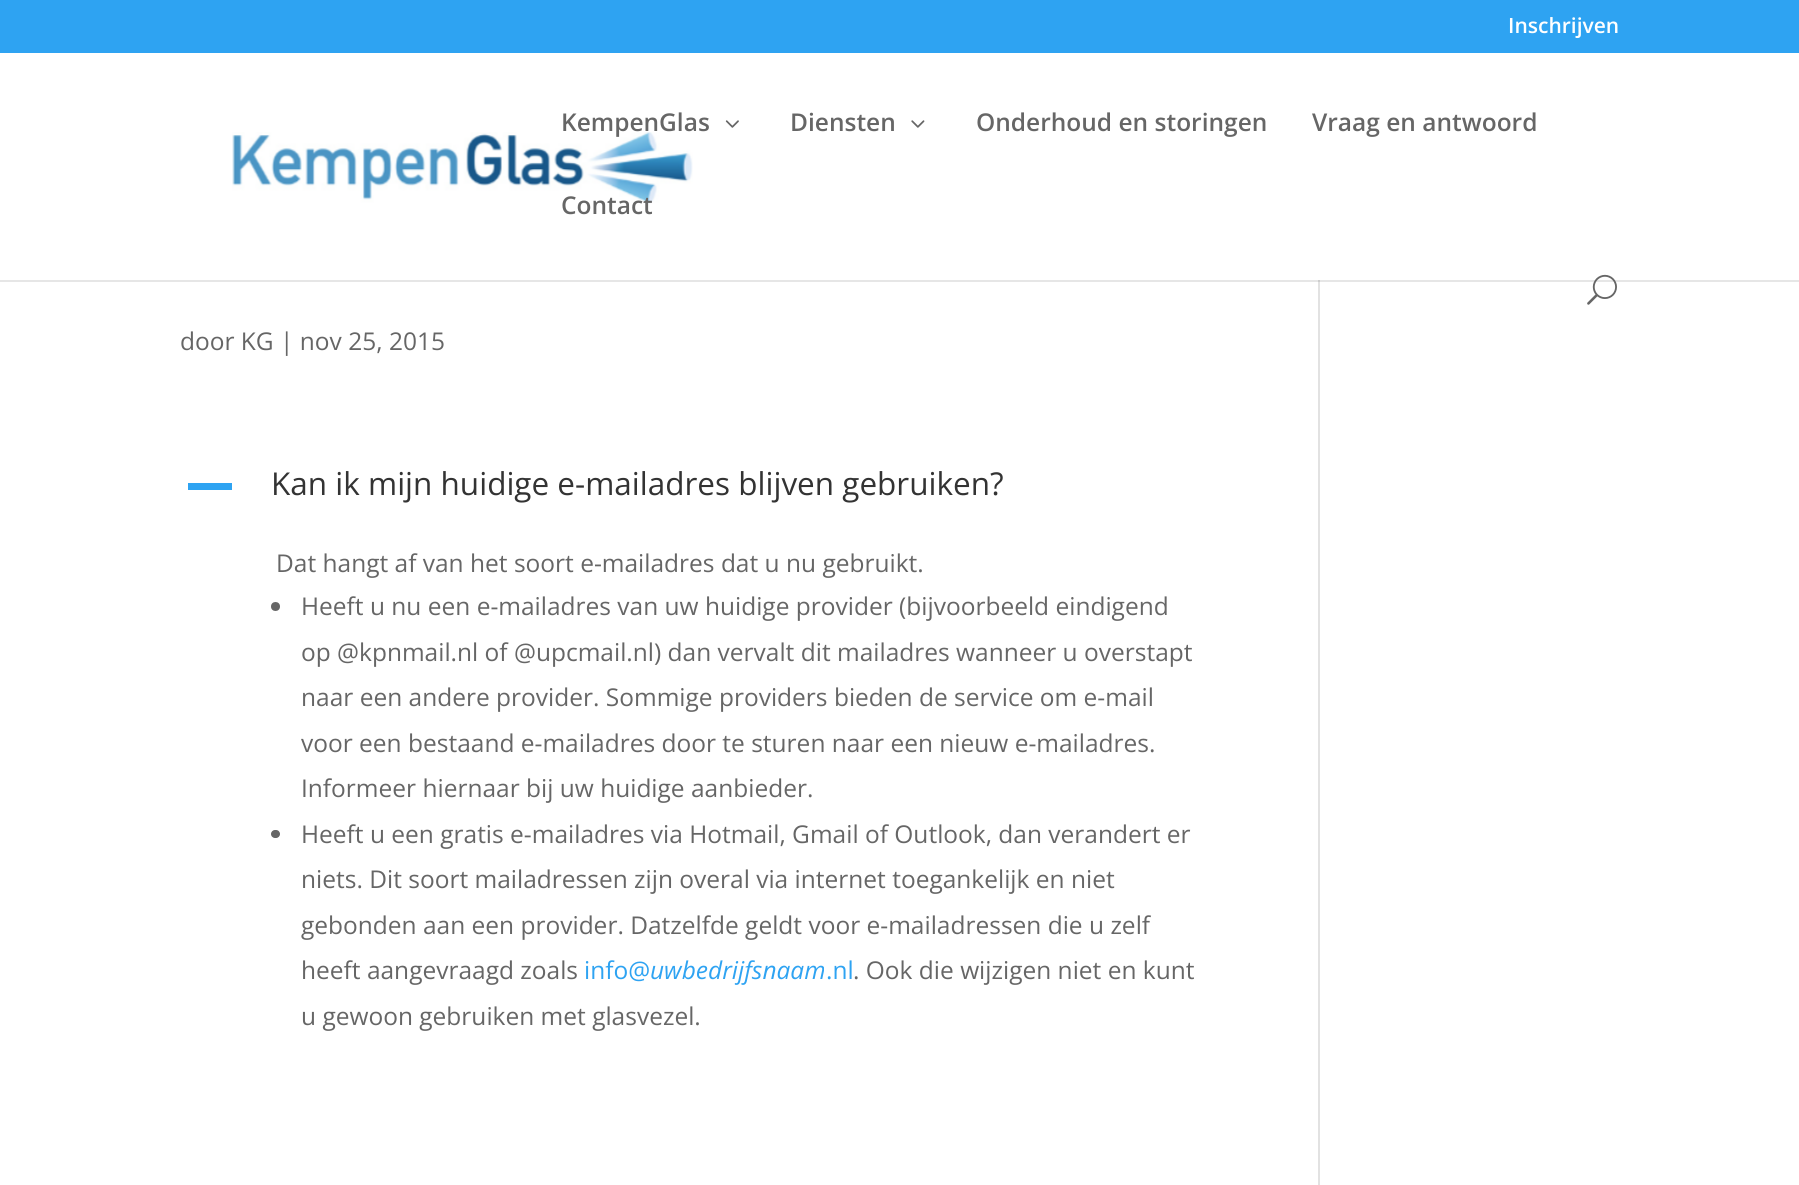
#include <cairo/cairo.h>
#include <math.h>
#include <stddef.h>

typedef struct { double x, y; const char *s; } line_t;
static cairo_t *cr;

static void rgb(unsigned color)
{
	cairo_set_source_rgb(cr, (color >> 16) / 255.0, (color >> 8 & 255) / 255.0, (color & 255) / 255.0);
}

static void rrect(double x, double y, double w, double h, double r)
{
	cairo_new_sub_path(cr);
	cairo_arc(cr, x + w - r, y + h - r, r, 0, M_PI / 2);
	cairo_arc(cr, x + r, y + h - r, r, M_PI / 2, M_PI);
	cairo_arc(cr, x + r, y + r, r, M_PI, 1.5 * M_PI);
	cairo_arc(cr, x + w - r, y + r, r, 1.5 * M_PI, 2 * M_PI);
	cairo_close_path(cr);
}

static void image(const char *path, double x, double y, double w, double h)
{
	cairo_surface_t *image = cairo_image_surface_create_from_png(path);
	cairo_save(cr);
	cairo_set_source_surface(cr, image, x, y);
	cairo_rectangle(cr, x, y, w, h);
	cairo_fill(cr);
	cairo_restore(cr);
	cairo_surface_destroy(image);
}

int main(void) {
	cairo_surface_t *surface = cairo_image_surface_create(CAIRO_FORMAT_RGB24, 1799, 1185);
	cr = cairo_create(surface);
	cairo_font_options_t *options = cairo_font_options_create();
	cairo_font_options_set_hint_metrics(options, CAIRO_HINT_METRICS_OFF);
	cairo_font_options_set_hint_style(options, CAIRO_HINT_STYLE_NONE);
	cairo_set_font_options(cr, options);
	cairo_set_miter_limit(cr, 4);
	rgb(0xffffff);
	cairo_paint(cr);
	rgb(0x2ea3f2);
	cairo_rectangle(cr, 0, 0, 1799, 53);
	cairo_fill(cr);
	rgb(0xe2e2e2);
	cairo_rectangle(cr, 1318, 280, 2, 905);
	cairo_fill(cr);
	cairo_set_source_rgba(cr, 0, 0, 0, 0.1);
	cairo_rectangle(cr, 0, 280, 1799, 2);
	cairo_fill(cr);
	image("img/1.png", 232, 132, 461, 72);
	image("img/2.png", 725, 120, 14, 8);
	image("img/3.png", 911, 120, 14, 8);
	image("img/4.png", 1587, 274, 30, 31);
	rgb(0x2ea3f2);
	cairo_rectangle(cr, 188, 483, 44, 7);
	cairo_fill(cr);
	rgb(0x666666);
	cairo_arc(cr, 275.5, 606.5, 4.5, 0, 2 * M_PI);
	cairo_fill(cr);
	rrect(271, 830, 9, 8, 4);
	cairo_fill(cr);
	cairo_select_font_face(cr, "Open Sans SemiBold", CAIRO_FONT_SLANT_NORMAL, CAIRO_FONT_WEIGHT_NORMAL);
	cairo_set_font_size(cr, 21);
	rgb(0xffffff);
	cairo_move_to(cr, 1508, 33);
	cairo_show_text(cr, "Inschrijven");
	cairo_set_font_size(cr, 24.5);
	rgb(0x666666);
	{
		static const line_t items[] = {
			{561, 131, "KempenGlas"},
			{790, 131, "Diensten"},
			{976, 131, "Onderhoud en storingen"},
			{1312, 131, "Vraag en antwoord"},
			{561, 214, "Contact"},
		};
		for (size_t i = 0; i < sizeof items / sizeof *items; i++) {
			cairo_move_to(cr, items[i].x, items[i].y);
			cairo_show_text(cr, items[i].s);
		}
	}
	cairo_select_font_face(cr, "Open Sans", CAIRO_FONT_SLANT_NORMAL, CAIRO_FONT_WEIGHT_NORMAL);
	cairo_move_to(cr, 180, 350);
	cairo_show_text(cr, "door KG | nov 25, 2015");
	cairo_set_font_size(cr, 31.5);
	rgb(0x333333);
	cairo_move_to(cr, 271, 495);
	cairo_show_text(cr, "Kan ik mijn huidige e-mailadres blijven gebruiken?");
	cairo_set_font_size(cr, 24.5);
	rgb(0x666666);
	{
		static const line_t items[] = {
			{276, 572, "Dat hangt af van het soort e-mailadres dat u nu gebruikt."},
			{301, 615, "Heeft u nu een e-mailadres van uw huidige provider (bijvoorbeeld eindigend"},
			{301, 661, "op @kpnmail.nl of @upcmail.nl) dan vervalt dit mailadres wanneer u overstapt"},
			{301, 706, "naar een andere provider. Sommige providers bieden de service om e-mail"},
			{301, 752, "voor een bestaand e-mailadres door te sturen naar een nieuw e-mailadres."},
			{301, 797, "Informeer hiernaar bij uw huidige aanbieder."},
			{301, 843, "Heeft u een gratis e-mailadres via Hotmail, Gmail of Outlook, dan verandert er"},
			{301, 888, "niets. Dit soort mailadressen zijn overal via internet toegankelijk en niet"},
			{301, 934, "gebonden aan een provider. Datzelfde geldt voor e-mailadressen die u zelf"},
			{301, 979, "heeft aangevraagd zoals"},
		};
		for (size_t i = 0; i < sizeof items / sizeof *items; i++) {
			cairo_move_to(cr, items[i].x, items[i].y);
			cairo_show_text(cr, items[i].s);
		}
	}
	rgb(0x2ea3f2);
	cairo_move_to(cr, 584, 979);
	cairo_show_text(cr, "info@");
	cairo_select_font_face(cr, "Open Sans", CAIRO_FONT_SLANT_ITALIC, CAIRO_FONT_WEIGHT_NORMAL);
	cairo_move_to(cr, 650, 979);
	cairo_show_text(cr, "uwbedrijfsnaam");
	cairo_select_font_face(cr, "Open Sans", CAIRO_FONT_SLANT_NORMAL, CAIRO_FONT_WEIGHT_NORMAL);
	cairo_move_to(cr, 826, 979);
	cairo_show_text(cr, ".nl");
	rgb(0x666666);
	cairo_move_to(cr, 853, 979);
	cairo_show_text(cr, ". Ook die wijzigen niet en kunt");
	cairo_move_to(cr, 301, 1025);
	cairo_show_text(cr, "u gewoon gebruiken met glasvezel.");
	cairo_surface_write_to_png(surface, "page.png");
	cairo_font_options_destroy(options);
	cairo_destroy(cr);
	cairo_surface_destroy(surface);
	return 0;
}
